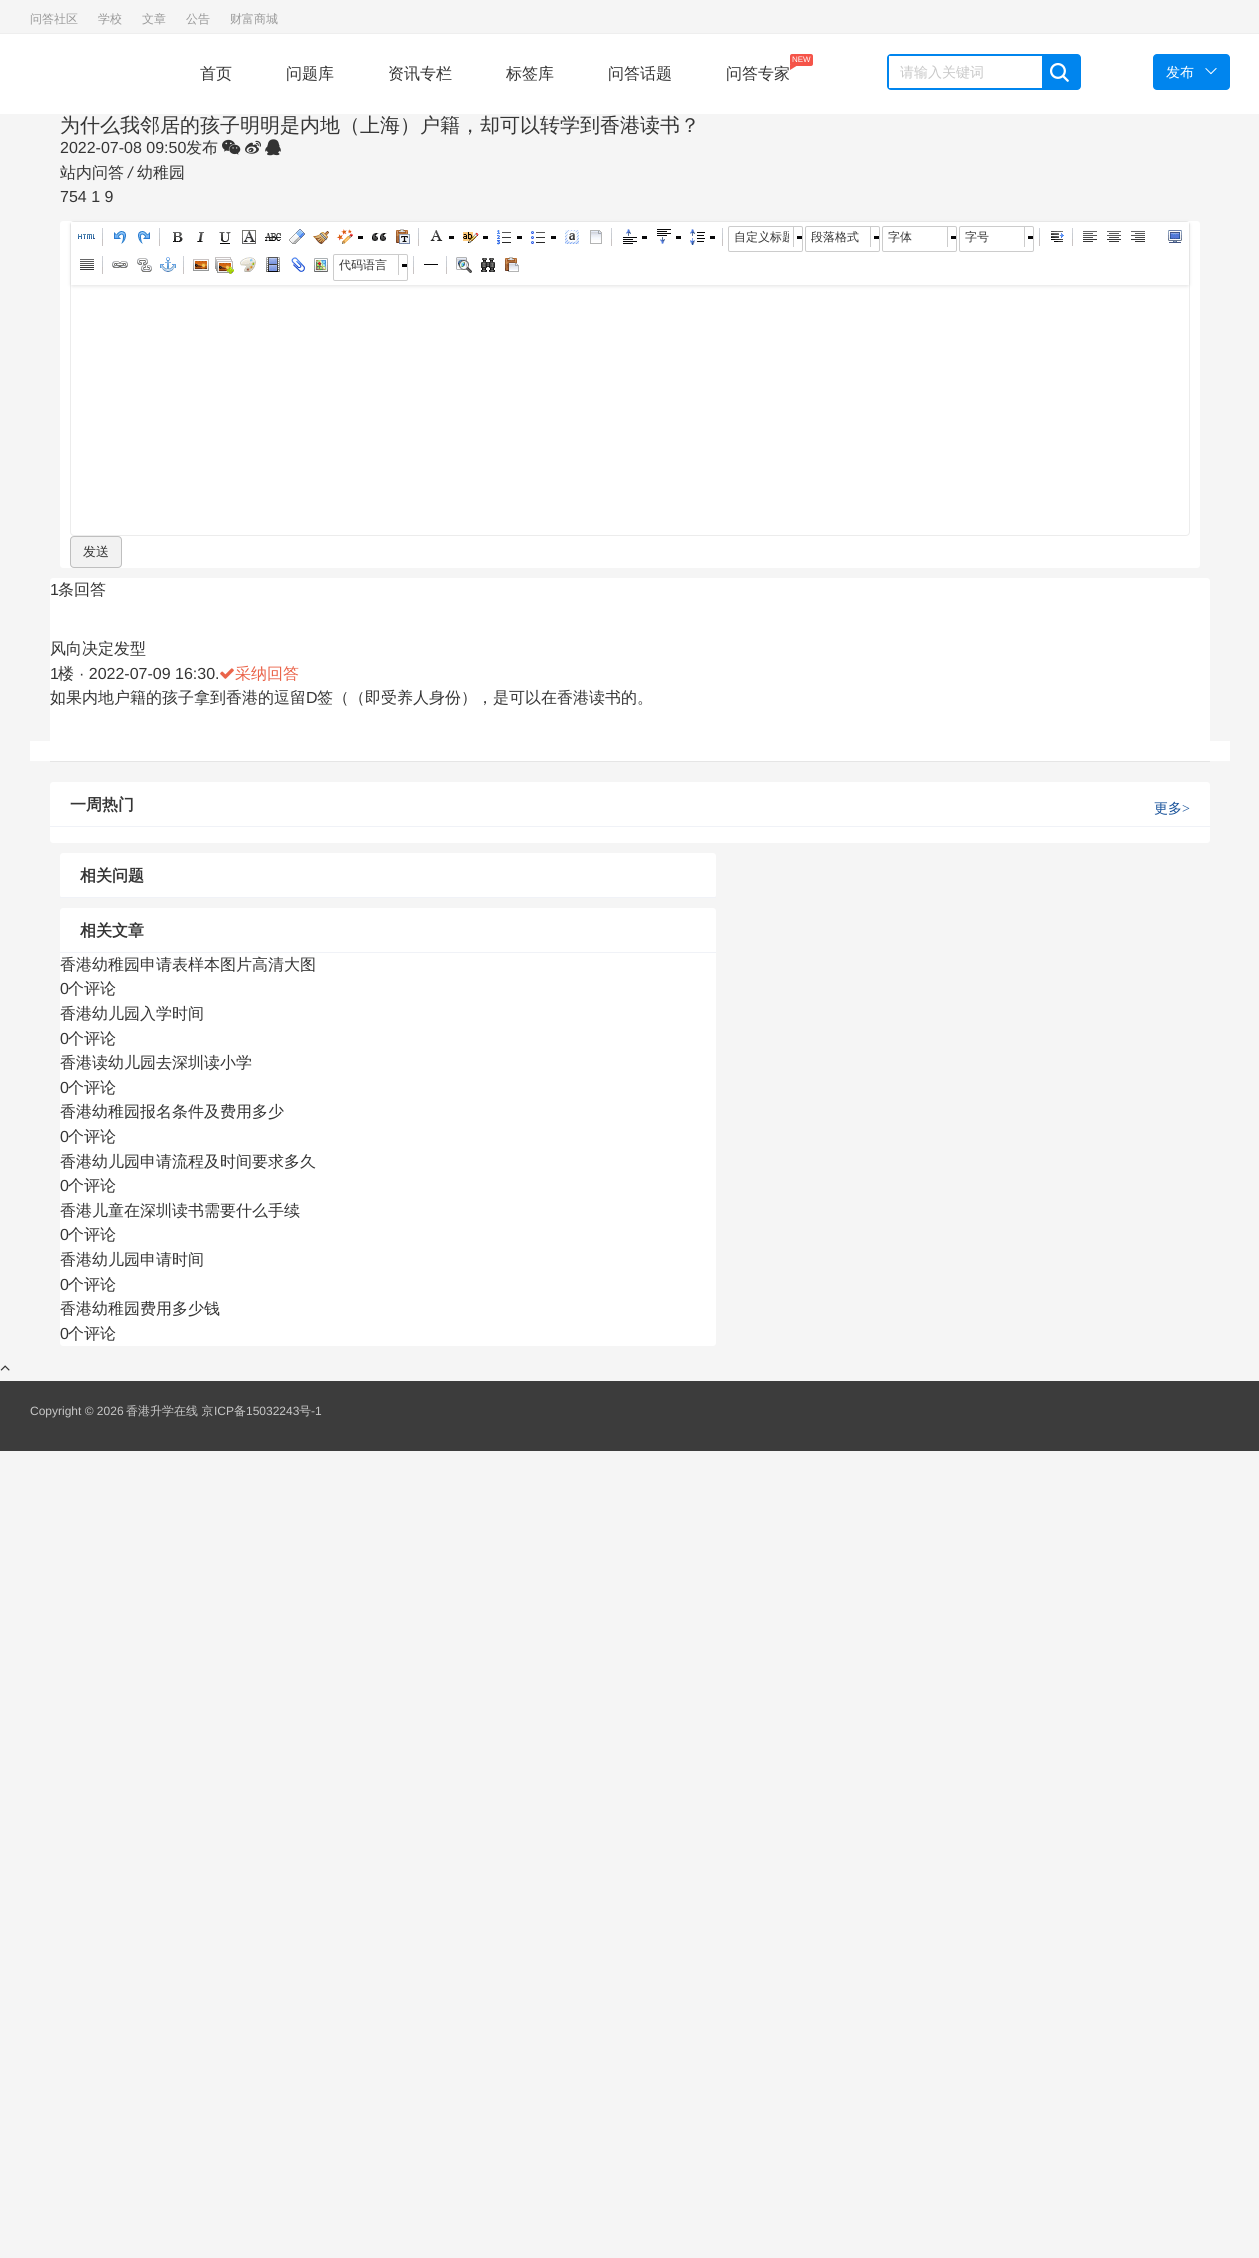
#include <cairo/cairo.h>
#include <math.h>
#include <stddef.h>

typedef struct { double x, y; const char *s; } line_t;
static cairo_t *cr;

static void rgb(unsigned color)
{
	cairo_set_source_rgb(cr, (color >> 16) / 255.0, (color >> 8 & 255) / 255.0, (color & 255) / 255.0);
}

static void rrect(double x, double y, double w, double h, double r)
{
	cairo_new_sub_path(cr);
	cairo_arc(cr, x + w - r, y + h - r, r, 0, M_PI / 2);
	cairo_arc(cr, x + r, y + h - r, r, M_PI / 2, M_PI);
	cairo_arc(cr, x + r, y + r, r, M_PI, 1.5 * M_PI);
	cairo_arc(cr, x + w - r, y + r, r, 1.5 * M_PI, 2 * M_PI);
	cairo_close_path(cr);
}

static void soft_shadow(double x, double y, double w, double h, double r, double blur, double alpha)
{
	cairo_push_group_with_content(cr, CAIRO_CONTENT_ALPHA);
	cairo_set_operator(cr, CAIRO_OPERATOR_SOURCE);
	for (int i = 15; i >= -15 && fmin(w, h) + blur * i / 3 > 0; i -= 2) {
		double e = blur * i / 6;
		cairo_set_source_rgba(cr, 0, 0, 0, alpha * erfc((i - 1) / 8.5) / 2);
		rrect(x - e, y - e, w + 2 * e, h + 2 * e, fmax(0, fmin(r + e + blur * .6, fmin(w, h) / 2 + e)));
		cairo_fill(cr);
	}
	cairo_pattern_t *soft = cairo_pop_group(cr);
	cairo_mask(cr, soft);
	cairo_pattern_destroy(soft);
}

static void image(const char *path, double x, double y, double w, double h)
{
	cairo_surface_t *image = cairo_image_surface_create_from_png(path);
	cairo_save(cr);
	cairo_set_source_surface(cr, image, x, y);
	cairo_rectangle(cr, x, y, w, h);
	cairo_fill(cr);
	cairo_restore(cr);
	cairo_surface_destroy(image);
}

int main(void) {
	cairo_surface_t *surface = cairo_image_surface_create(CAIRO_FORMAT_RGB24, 1259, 2258);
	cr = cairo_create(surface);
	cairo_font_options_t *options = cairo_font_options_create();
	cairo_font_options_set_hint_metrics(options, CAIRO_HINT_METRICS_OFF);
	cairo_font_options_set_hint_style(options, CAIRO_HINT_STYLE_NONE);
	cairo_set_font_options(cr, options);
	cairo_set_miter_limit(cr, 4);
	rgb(0xf5f5f5);
	cairo_paint(cr);
	rgb(0xeeeeee);
	cairo_rectangle(cr, 0, 33, 1259, 1);
	cairo_fill(cr);
	rgb(0xffffff);
	cairo_rectangle(cr, 0, 34, 1259, 80);
	cairo_fill(cr);
	rgb(0xf55449);
	rrect(790, 54, 23, 12, 2);
	cairo_fill(cr);
	cairo_new_path(cr);
	cairo_move_to(cr, 790, 65);
	cairo_line_to(cr, 798, 65);
	cairo_line_to(cr, 790, 70);
	cairo_close_path(cr);
	cairo_fill(cr);
	rgb(0x0085ee);
	rrect(887, 54, 194, 36, 4);
	cairo_fill(cr);
	rgb(0xffffff);
	cairo_rectangle(cr, 889, 56, 153, 32);
	cairo_fill(cr);
	image("img/1.png", 1050, 63, 19, 19);
	rgb(0x0085ee);
	rrect(1153, 54, 77, 36, 4);
	cairo_fill(cr);
	image("img/2.png", 1205, 68, 12, 7);
	image("img/3.png", 222, 139, 19, 16);
	image("img/4.png", 245, 140, 16, 14);
	image("img/5.png", 265, 139, 16, 17);
	rgb(0xffffff);
	rrect(60, 221, 1140, 347, 3);
	cairo_fill(cr);
	rrect(70.5, 221.5, 1119, 314, 3.5);
	rgb(0xececec);
	cairo_set_line_width(cr, 1);
	cairo_stroke(cr);
	rgb(0xcccccc);
	soft_shadow(71, 223, 1118, 63, 2, 2, 0.6);
	rgb(0xffffff);
	cairo_rectangle(cr, 71, 222, 1118, 63);
	cairo_fill(cr);
	image("img/6.png", 78, 234, 17, 5);
	image("img/7.png", 102, 228, 1, 18);
	image("img/8.png", 114, 231, 12, 13);
	image("img/9.png", 138, 231, 12, 13);
	image("img/7.png", 159, 228, 1, 18);
	image("img/10.png", 173, 232, 10, 10);
	image("img/11.png", 197, 232, 7, 10);
	image("img/12.png", 219, 232, 12, 12);
	image("img/13.png", 242, 230, 14, 14);
	image("img/14.png", 265, 233, 16, 8);
	image("img/15.png", 289, 229, 16, 15);
	image("img/16.png", 313, 231, 16, 13);
	image("img/17.png", 336, 229, 17, 15);
	rgb(0x080809);
	cairo_rectangle(cr, 358, 236, 5, 3);
	cairo_fill(cr);
	image("img/18.png", 372, 233, 15, 8);
	image("img/19.png", 396, 229, 14, 15);
	image("img/7.png", 418, 228, 1, 18);
	image("img/20.png", 430, 230, 13, 11);
	cairo_rectangle(cr, 449, 236, 5, 3);
	cairo_fill(cr);
	image("img/21.png", 463, 232, 16, 11);
	cairo_rectangle(cr, 483, 236, 5, 3);
	cairo_fill(cr);
	image("img/22.png", 497, 230, 14, 15);
	cairo_rectangle(cr, 517, 236, 5, 3);
	cairo_fill(cr);
	image("img/23.png", 531, 231, 14, 13);
	cairo_rectangle(cr, 551, 236, 5, 3);
	cairo_fill(cr);
	image("img/24.png", 565, 230, 14, 14);
	image("img/25.png", 590, 230, 12, 14);
	image("img/7.png", 611, 228, 1, 18);
	image("img/26.png", 623, 229, 14, 15);
	cairo_rectangle(cr, 642, 236, 5, 3);
	cairo_fill(cr);
	image("img/27.png", 657, 229, 14, 15);
	cairo_rectangle(cr, 676, 236, 5, 3);
	cairo_fill(cr);
	image("img/28.png", 690, 229, 15, 16);
	cairo_rectangle(cr, 710, 236, 5, 3);
	cairo_fill(cr);
	image("img/7.png", 722, 228, 1, 18);
	rrect(728.5, 226.5, 74, 25, 1.5);
	rgb(0xcccccc);
	cairo_stroke(cr);
	rgb(0x080809);
	cairo_rectangle(cr, 797, 236, 5, 3);
	cairo_fill(cr);
	rgb(0xcccccc);
	cairo_rectangle(cr, 793, 227, 1, 20);
	cairo_fill(cr);
	rrect(805.5, 226.5, 74, 25, 1.5);
	cairo_stroke(cr);
	rgb(0x080809);
	cairo_rectangle(cr, 874, 236, 5, 3);
	cairo_fill(cr);
	rgb(0xcccccc);
	cairo_rectangle(cr, 870, 227, 1, 20);
	cairo_fill(cr);
	rrect(882.5, 226.5, 74, 25, 1.5);
	cairo_stroke(cr);
	rgb(0x080809);
	cairo_rectangle(cr, 951, 236, 5, 3);
	cairo_fill(cr);
	rgb(0xcccccc);
	cairo_rectangle(cr, 947, 227, 1, 20);
	cairo_fill(cr);
	rrect(959.5, 226.5, 74, 25, 1.5);
	cairo_stroke(cr);
	rgb(0x080809);
	cairo_rectangle(cr, 1028, 236, 5, 3);
	cairo_fill(cr);
	rgb(0xcccccc);
	cairo_rectangle(cr, 1024, 227, 1, 20);
	cairo_fill(cr);
	image("img/7.png", 1039, 228, 1, 18);
	image("img/29.png", 1051, 231, 13, 11);
	image("img/7.png", 1072, 228, 1, 18);
	image("img/30.png", 1083, 231, 14, 11);
	image("img/31.png", 1107, 231, 14, 11);
	image("img/32.png", 1131, 231, 14, 11);
	image("img/33.png", 1168, 230, 14, 13);
	image("img/34.png", 80, 259, 14, 11);
	image("img/7.png", 102, 256, 1, 18);
	image("img/35.png", 112, 261, 16, 7);
	image("img/36.png", 137, 258, 15, 14);
	image("img/37.png", 160, 257, 16, 15);
	image("img/7.png", 183, 256, 1, 18);
	image("img/38.png", 193, 259, 16, 12);
	image("img/39.png", 215, 257, 19, 17);
	image("img/40.png", 240, 257, 16, 15);
	image("img/41.png", 266, 257, 14, 15);
	image("img/42.png", 291, 257, 14, 15);
	image("img/43.png", 314, 258, 14, 14);
	rrect(333.5, 254.5, 74, 26, 1.5);
	cairo_stroke(cr);
	rgb(0x080809);
	cairo_rectangle(cr, 402, 264, 5, 3);
	cairo_fill(cr);
	rgb(0xcccccc);
	cairo_rectangle(cr, 398, 255, 1, 20);
	cairo_fill(cr);
	image("img/7.png", 413, 256, 1, 18);
	rgb(0x080809);
	cairo_rectangle(cr, 424, 264, 14, 1);
	cairo_fill(cr);
	image("img/7.png", 446, 256, 1, 18);
	image("img/44.png", 456, 257, 16, 16);
	image("img/45.png", 481, 258, 14, 14);
	image("img/46.png", 505, 257, 14, 15);
	rgb(0xf2f2f2);
	rrect(70.5, 536.5, 51, 31, 3.5);
	cairo_fill_preserve(cr);
	rgb(0xbfbfbf);
	cairo_stroke(cr);
	rgb(0xffffff);
	rrect(50, 578, 1160, 184, 3);
	cairo_fill(cr);
	rgb(0xe5e5e5);
	cairo_rectangle(cr, 50, 761, 1160, 1);
	cairo_fill(cr);
	image("img/47.png", 220, 668, 14, 11);
	rgb(0xffffff);
	cairo_rectangle(cr, 30, 741, 1200, 20);
	cairo_fill(cr);
	rrect(50, 782, 1160, 61, 3);
	cairo_fill(cr);
	rgb(0xf0f2f7);
	cairo_rectangle(cr, 50, 826, 1160, 1);
	cairo_fill(cr);
	rgb(0xffffff);
	rrect(60, 853, 656, 45, 3);
	cairo_fill(cr);
	rgb(0xf0f2f7);
	cairo_rectangle(cr, 60, 897, 656, 1);
	cairo_fill(cr);
	rgb(0xffffff);
	rrect(60, 908, 656, 438, 3);
	cairo_fill(cr);
	rgb(0xf0f2f7);
	cairo_rectangle(cr, 60, 952, 656, 1);
	cairo_fill(cr);
	image("img/48.png", 0, 1365, 10, 6);
	rgb(0x3c3c3c);
	cairo_rectangle(cr, 0, 1381, 1259, 70);
	cairo_fill(cr);
	cairo_select_font_face(cr, "WenQuanYi Zen Hei Medium", CAIRO_FONT_SLANT_NORMAL, CAIRO_FONT_WEIGHT_NORMAL);
	cairo_set_font_size(cr, 12);
	rgb(0x999999);
	{
		static const line_t items[] = {
			{30, 23, "问答社区"},
			{98, 23, "学校"},
			{142, 23, "文章"},
			{186, 23, "公告"},
			{230, 23, "财富商城"},
		};
		for (size_t i = 0; i < sizeof items / sizeof *items; i++) {
			cairo_move_to(cr, items[i].x, items[i].y);
			cairo_show_text(cr, items[i].s);
		}
	}
	cairo_set_font_size(cr, 16);
	rgb(0x353535);
	{
		static const line_t items[] = {
			{200, 79, "首页"},
			{286, 79, "问题库"},
			{388, 79, "资讯专栏"},
			{506, 79, "标签库"},
			{608, 79, "问答话题"},
		};
		for (size_t i = 0; i < sizeof items / sizeof *items; i++) {
			cairo_move_to(cr, items[i].x, items[i].y);
			cairo_show_text(cr, items[i].s);
		}
	}
	cairo_select_font_face(cr, "Liberation Sans", CAIRO_FONT_SLANT_NORMAL, CAIRO_FONT_WEIGHT_NORMAL);
	cairo_set_font_size(cr, 8);
	rgb(0xffffff);
	cairo_move_to(cr, 792, 62);
	cairo_show_text(cr, "NEW");
	cairo_select_font_face(cr, "WenQuanYi Zen Hei Medium", CAIRO_FONT_SLANT_NORMAL, CAIRO_FONT_WEIGHT_NORMAL);
	cairo_set_font_size(cr, 16);
	rgb(0x353535);
	cairo_move_to(cr, 726, 79);
	cairo_show_text(cr, "问答专家");
	cairo_set_font_size(cr, 14);
	rgb(0xc8c8c8);
	cairo_move_to(cr, 900, 77);
	cairo_show_text(cr, "请输入关键词");
	rgb(0xffffff);
	cairo_move_to(cr, 1166, 77);
	cairo_show_text(cr, "发布");
	cairo_set_font_size(cr, 20);
	rgb(0x353535);
	cairo_move_to(cr, 60, 132);
	cairo_show_text(cr, "为什么我邻居的孩子明明是内地（上海）户籍，却可以转学到香港读书？");
	cairo_select_font_face(cr, "Liberation Sans", CAIRO_FONT_SLANT_NORMAL, CAIRO_FONT_WEIGHT_NORMAL);
	cairo_set_font_size(cr, 16);
	cairo_move_to(cr, 60, 153);
	cairo_show_text(cr, "2022-07-08 09:50");
	cairo_select_font_face(cr, "WenQuanYi Zen Hei Medium", CAIRO_FONT_SLANT_NORMAL, CAIRO_FONT_WEIGHT_NORMAL);
	cairo_move_to(cr, 186, 153);
	cairo_show_text(cr, "发布");
	cairo_move_to(cr, 60, 178);
	cairo_show_text(cr, "站内问答");
	cairo_select_font_face(cr, "Liberation Sans", CAIRO_FONT_SLANT_ITALIC, CAIRO_FONT_WEIGHT_NORMAL);
	cairo_move_to(cr, 128, 178);
	cairo_show_text(cr, "/");
	cairo_select_font_face(cr, "WenQuanYi Zen Hei Medium", CAIRO_FONT_SLANT_NORMAL, CAIRO_FONT_WEIGHT_NORMAL);
	cairo_move_to(cr, 137, 178);
	cairo_show_text(cr, "幼稚园");
	cairo_select_font_face(cr, "Liberation Sans", CAIRO_FONT_SLANT_NORMAL, CAIRO_FONT_WEIGHT_NORMAL);
	cairo_move_to(cr, 60, 202);
	cairo_show_text(cr, "754 1 9");
	cairo_save(cr);
	cairo_rectangle(cr, 729, 227, 60, 20);
	cairo_clip(cr);
	cairo_select_font_face(cr, "WenQuanYi Zen Hei Medium", CAIRO_FONT_SLANT_NORMAL, CAIRO_FONT_WEIGHT_NORMAL);
	cairo_set_font_size(cr, 12);
	cairo_move_to(cr, 734, 241);
	cairo_show_text(cr, "自定义标题");
	cairo_restore(cr);
	cairo_select_font_face(cr, "WenQuanYi Zen Hei Medium", CAIRO_FONT_SLANT_NORMAL, CAIRO_FONT_WEIGHT_NORMAL);
	cairo_set_font_size(cr, 12);
	{
		static const line_t items[] = {
			{811, 241, "段落格式"},
			{888, 241, "字体"},
			{965, 241, "字号"},
			{339, 269, "代码语言"},
		};
		for (size_t i = 0; i < sizeof items / sizeof *items; i++) {
			cairo_move_to(cr, items[i].x, items[i].y);
			cairo_show_text(cr, items[i].s);
		}
	}
	cairo_set_font_size(cr, 13);
	cairo_move_to(cr, 83, 556);
	cairo_show_text(cr, "发送");
	cairo_select_font_face(cr, "Liberation Sans", CAIRO_FONT_SLANT_NORMAL, CAIRO_FONT_WEIGHT_NORMAL);
	cairo_set_font_size(cr, 16);
	cairo_move_to(cr, 50, 595);
	cairo_show_text(cr, "1");
	cairo_select_font_face(cr, "WenQuanYi Zen Hei Medium", CAIRO_FONT_SLANT_NORMAL, CAIRO_FONT_WEIGHT_NORMAL);
	cairo_move_to(cr, 58, 595);
	cairo_show_text(cr, "条回答");
	cairo_move_to(cr, 50, 654);
	cairo_show_text(cr, "风向决定发型");
	cairo_select_font_face(cr, "Liberation Sans", CAIRO_FONT_SLANT_NORMAL, CAIRO_FONT_WEIGHT_NORMAL);
	cairo_move_to(cr, 50, 679);
	cairo_show_text(cr, "1");
	cairo_select_font_face(cr, "WenQuanYi Zen Hei Medium", CAIRO_FONT_SLANT_NORMAL, CAIRO_FONT_WEIGHT_NORMAL);
	cairo_move_to(cr, 58, 679);
	cairo_show_text(cr, "楼");
	cairo_select_font_face(cr, "Liberation Sans", CAIRO_FONT_SLANT_NORMAL, CAIRO_FONT_WEIGHT_NORMAL);
	cairo_move_to(cr, 79, 679);
	cairo_show_text(cr, "· 2022-07-09 16:30.");
	cairo_select_font_face(cr, "WenQuanYi Zen Hei Medium", CAIRO_FONT_SLANT_NORMAL, CAIRO_FONT_WEIGHT_NORMAL);
	rgb(0xea644a);
	cairo_move_to(cr, 235, 679);
	cairo_show_text(cr, "采纳回答");
	rgb(0x353535);
	cairo_move_to(cr, 50, 703);
	cairo_show_text(cr, "如果内地户籍的孩子拿到香港的逗留");
	cairo_select_font_face(cr, "Liberation Sans", CAIRO_FONT_SLANT_NORMAL, CAIRO_FONT_WEIGHT_NORMAL);
	cairo_move_to(cr, 306, 703);
	cairo_show_text(cr, "D");
	cairo_select_font_face(cr, "WenQuanYi Zen Hei Medium", CAIRO_FONT_SLANT_NORMAL, CAIRO_FONT_WEIGHT_NORMAL);
	cairo_move_to(cr, 317, 703);
	cairo_show_text(cr, "签（（即受养人身份），是可以在香港读书的。");
	cairo_select_font_face(cr, "WenQuanYi Zen Hei", CAIRO_FONT_SLANT_NORMAL, CAIRO_FONT_WEIGHT_BOLD);
	cairo_move_to(cr, 70, 810);
	cairo_show_text(cr, "一周热门");
	cairo_select_font_face(cr, "WenQuanYi Zen Hei Medium", CAIRO_FONT_SLANT_NORMAL, CAIRO_FONT_WEIGHT_NORMAL);
	cairo_set_font_size(cr, 14);
	rgb(0x175199);
	cairo_move_to(cr, 1154, 813);
	cairo_show_text(cr, "更多");
	cairo_select_font_face(cr, "Liberation Serif", CAIRO_FONT_SLANT_NORMAL, CAIRO_FONT_WEIGHT_NORMAL);
	cairo_move_to(cr, 1182, 813);
	cairo_show_text(cr, ">");
	cairo_select_font_face(cr, "WenQuanYi Zen Hei", CAIRO_FONT_SLANT_NORMAL, CAIRO_FONT_WEIGHT_BOLD);
	cairo_set_font_size(cr, 16);
	rgb(0x353535);
	cairo_move_to(cr, 80, 881);
	cairo_show_text(cr, "相关问题");
	cairo_move_to(cr, 80, 936);
	cairo_show_text(cr, "相关文章");
	cairo_select_font_face(cr, "WenQuanYi Zen Hei Medium", CAIRO_FONT_SLANT_NORMAL, CAIRO_FONT_WEIGHT_NORMAL);
	cairo_move_to(cr, 60, 970);
	cairo_show_text(cr, "香港幼稚园申请表样本图片高清大图");
	cairo_select_font_face(cr, "Liberation Sans", CAIRO_FONT_SLANT_NORMAL, CAIRO_FONT_WEIGHT_NORMAL);
	cairo_move_to(cr, 60, 994);
	cairo_show_text(cr, "0");
	cairo_select_font_face(cr, "WenQuanYi Zen Hei Medium", CAIRO_FONT_SLANT_NORMAL, CAIRO_FONT_WEIGHT_NORMAL);
	cairo_move_to(cr, 68, 994);
	cairo_show_text(cr, "个评论");
	cairo_move_to(cr, 60, 1019);
	cairo_show_text(cr, "香港幼儿园入学时间");
	cairo_select_font_face(cr, "Liberation Sans", CAIRO_FONT_SLANT_NORMAL, CAIRO_FONT_WEIGHT_NORMAL);
	cairo_move_to(cr, 60, 1044);
	cairo_show_text(cr, "0");
	cairo_select_font_face(cr, "WenQuanYi Zen Hei Medium", CAIRO_FONT_SLANT_NORMAL, CAIRO_FONT_WEIGHT_NORMAL);
	cairo_move_to(cr, 68, 1044);
	cairo_show_text(cr, "个评论");
	cairo_move_to(cr, 60, 1068);
	cairo_show_text(cr, "香港读幼儿园去深圳读小学");
	cairo_select_font_face(cr, "Liberation Sans", CAIRO_FONT_SLANT_NORMAL, CAIRO_FONT_WEIGHT_NORMAL);
	cairo_move_to(cr, 60, 1093);
	cairo_show_text(cr, "0");
	cairo_select_font_face(cr, "WenQuanYi Zen Hei Medium", CAIRO_FONT_SLANT_NORMAL, CAIRO_FONT_WEIGHT_NORMAL);
	cairo_move_to(cr, 68, 1093);
	cairo_show_text(cr, "个评论");
	cairo_move_to(cr, 60, 1117);
	cairo_show_text(cr, "香港幼稚园报名条件及费用多少");
	cairo_select_font_face(cr, "Liberation Sans", CAIRO_FONT_SLANT_NORMAL, CAIRO_FONT_WEIGHT_NORMAL);
	cairo_move_to(cr, 60, 1142);
	cairo_show_text(cr, "0");
	cairo_select_font_face(cr, "WenQuanYi Zen Hei Medium", CAIRO_FONT_SLANT_NORMAL, CAIRO_FONT_WEIGHT_NORMAL);
	cairo_move_to(cr, 68, 1142);
	cairo_show_text(cr, "个评论");
	cairo_move_to(cr, 60, 1167);
	cairo_show_text(cr, "香港幼儿园申请流程及时间要求多久");
	cairo_select_font_face(cr, "Liberation Sans", CAIRO_FONT_SLANT_NORMAL, CAIRO_FONT_WEIGHT_NORMAL);
	cairo_move_to(cr, 60, 1191);
	cairo_show_text(cr, "0");
	cairo_select_font_face(cr, "WenQuanYi Zen Hei Medium", CAIRO_FONT_SLANT_NORMAL, CAIRO_FONT_WEIGHT_NORMAL);
	cairo_move_to(cr, 68, 1191);
	cairo_show_text(cr, "个评论");
	cairo_move_to(cr, 60, 1216);
	cairo_show_text(cr, "香港儿童在深圳读书需要什么手续");
	cairo_select_font_face(cr, "Liberation Sans", CAIRO_FONT_SLANT_NORMAL, CAIRO_FONT_WEIGHT_NORMAL);
	cairo_move_to(cr, 60, 1240);
	cairo_show_text(cr, "0");
	cairo_select_font_face(cr, "WenQuanYi Zen Hei Medium", CAIRO_FONT_SLANT_NORMAL, CAIRO_FONT_WEIGHT_NORMAL);
	cairo_move_to(cr, 68, 1240);
	cairo_show_text(cr, "个评论");
	cairo_move_to(cr, 60, 1265);
	cairo_show_text(cr, "香港幼儿园申请时间");
	cairo_select_font_face(cr, "Liberation Sans", CAIRO_FONT_SLANT_NORMAL, CAIRO_FONT_WEIGHT_NORMAL);
	cairo_move_to(cr, 60, 1290);
	cairo_show_text(cr, "0");
	cairo_select_font_face(cr, "WenQuanYi Zen Hei Medium", CAIRO_FONT_SLANT_NORMAL, CAIRO_FONT_WEIGHT_NORMAL);
	cairo_move_to(cr, 68, 1290);
	cairo_show_text(cr, "个评论");
	cairo_move_to(cr, 60, 1314);
	cairo_show_text(cr, "香港幼稚园费用多少钱");
	cairo_select_font_face(cr, "Liberation Sans", CAIRO_FONT_SLANT_NORMAL, CAIRO_FONT_WEIGHT_NORMAL);
	cairo_move_to(cr, 60, 1339);
	cairo_show_text(cr, "0");
	cairo_select_font_face(cr, "WenQuanYi Zen Hei Medium", CAIRO_FONT_SLANT_NORMAL, CAIRO_FONT_WEIGHT_NORMAL);
	cairo_move_to(cr, 68, 1339);
	cairo_show_text(cr, "个评论");
	cairo_select_font_face(cr, "Liberation Sans", CAIRO_FONT_SLANT_NORMAL, CAIRO_FONT_WEIGHT_NORMAL);
	cairo_set_font_size(cr, 12);
	rgb(0xc8c8c8);
	cairo_move_to(cr, 30, 1415);
	cairo_show_text(cr, "Copyright © 2026");
	cairo_select_font_face(cr, "WenQuanYi Zen Hei Medium", CAIRO_FONT_SLANT_NORMAL, CAIRO_FONT_WEIGHT_NORMAL);
	cairo_move_to(cr, 126, 1415);
	cairo_show_text(cr, "香港升学在线 京");
	cairo_select_font_face(cr, "Liberation Sans", CAIRO_FONT_SLANT_NORMAL, CAIRO_FONT_WEIGHT_NORMAL);
	cairo_move_to(cr, 214, 1415);
	cairo_show_text(cr, "ICP");
	cairo_select_font_face(cr, "WenQuanYi Zen Hei Medium", CAIRO_FONT_SLANT_NORMAL, CAIRO_FONT_WEIGHT_NORMAL);
	cairo_move_to(cr, 234, 1415);
	cairo_show_text(cr, "备");
	cairo_select_font_face(cr, "Liberation Sans", CAIRO_FONT_SLANT_NORMAL, CAIRO_FONT_WEIGHT_NORMAL);
	cairo_move_to(cr, 246, 1415);
	cairo_show_text(cr, "15032243");
	cairo_select_font_face(cr, "WenQuanYi Zen Hei Medium", CAIRO_FONT_SLANT_NORMAL, CAIRO_FONT_WEIGHT_NORMAL);
	cairo_move_to(cr, 299, 1415);
	cairo_show_text(cr, "号");
	cairo_select_font_face(cr, "Liberation Sans", CAIRO_FONT_SLANT_NORMAL, CAIRO_FONT_WEIGHT_NORMAL);
	cairo_move_to(cr, 311, 1415);
	cairo_show_text(cr, "-1");
	cairo_surface_write_to_png(surface, "page.png");
	cairo_font_options_destroy(options);
	cairo_destroy(cr);
	cairo_surface_destroy(surface);
	return 0;
}
